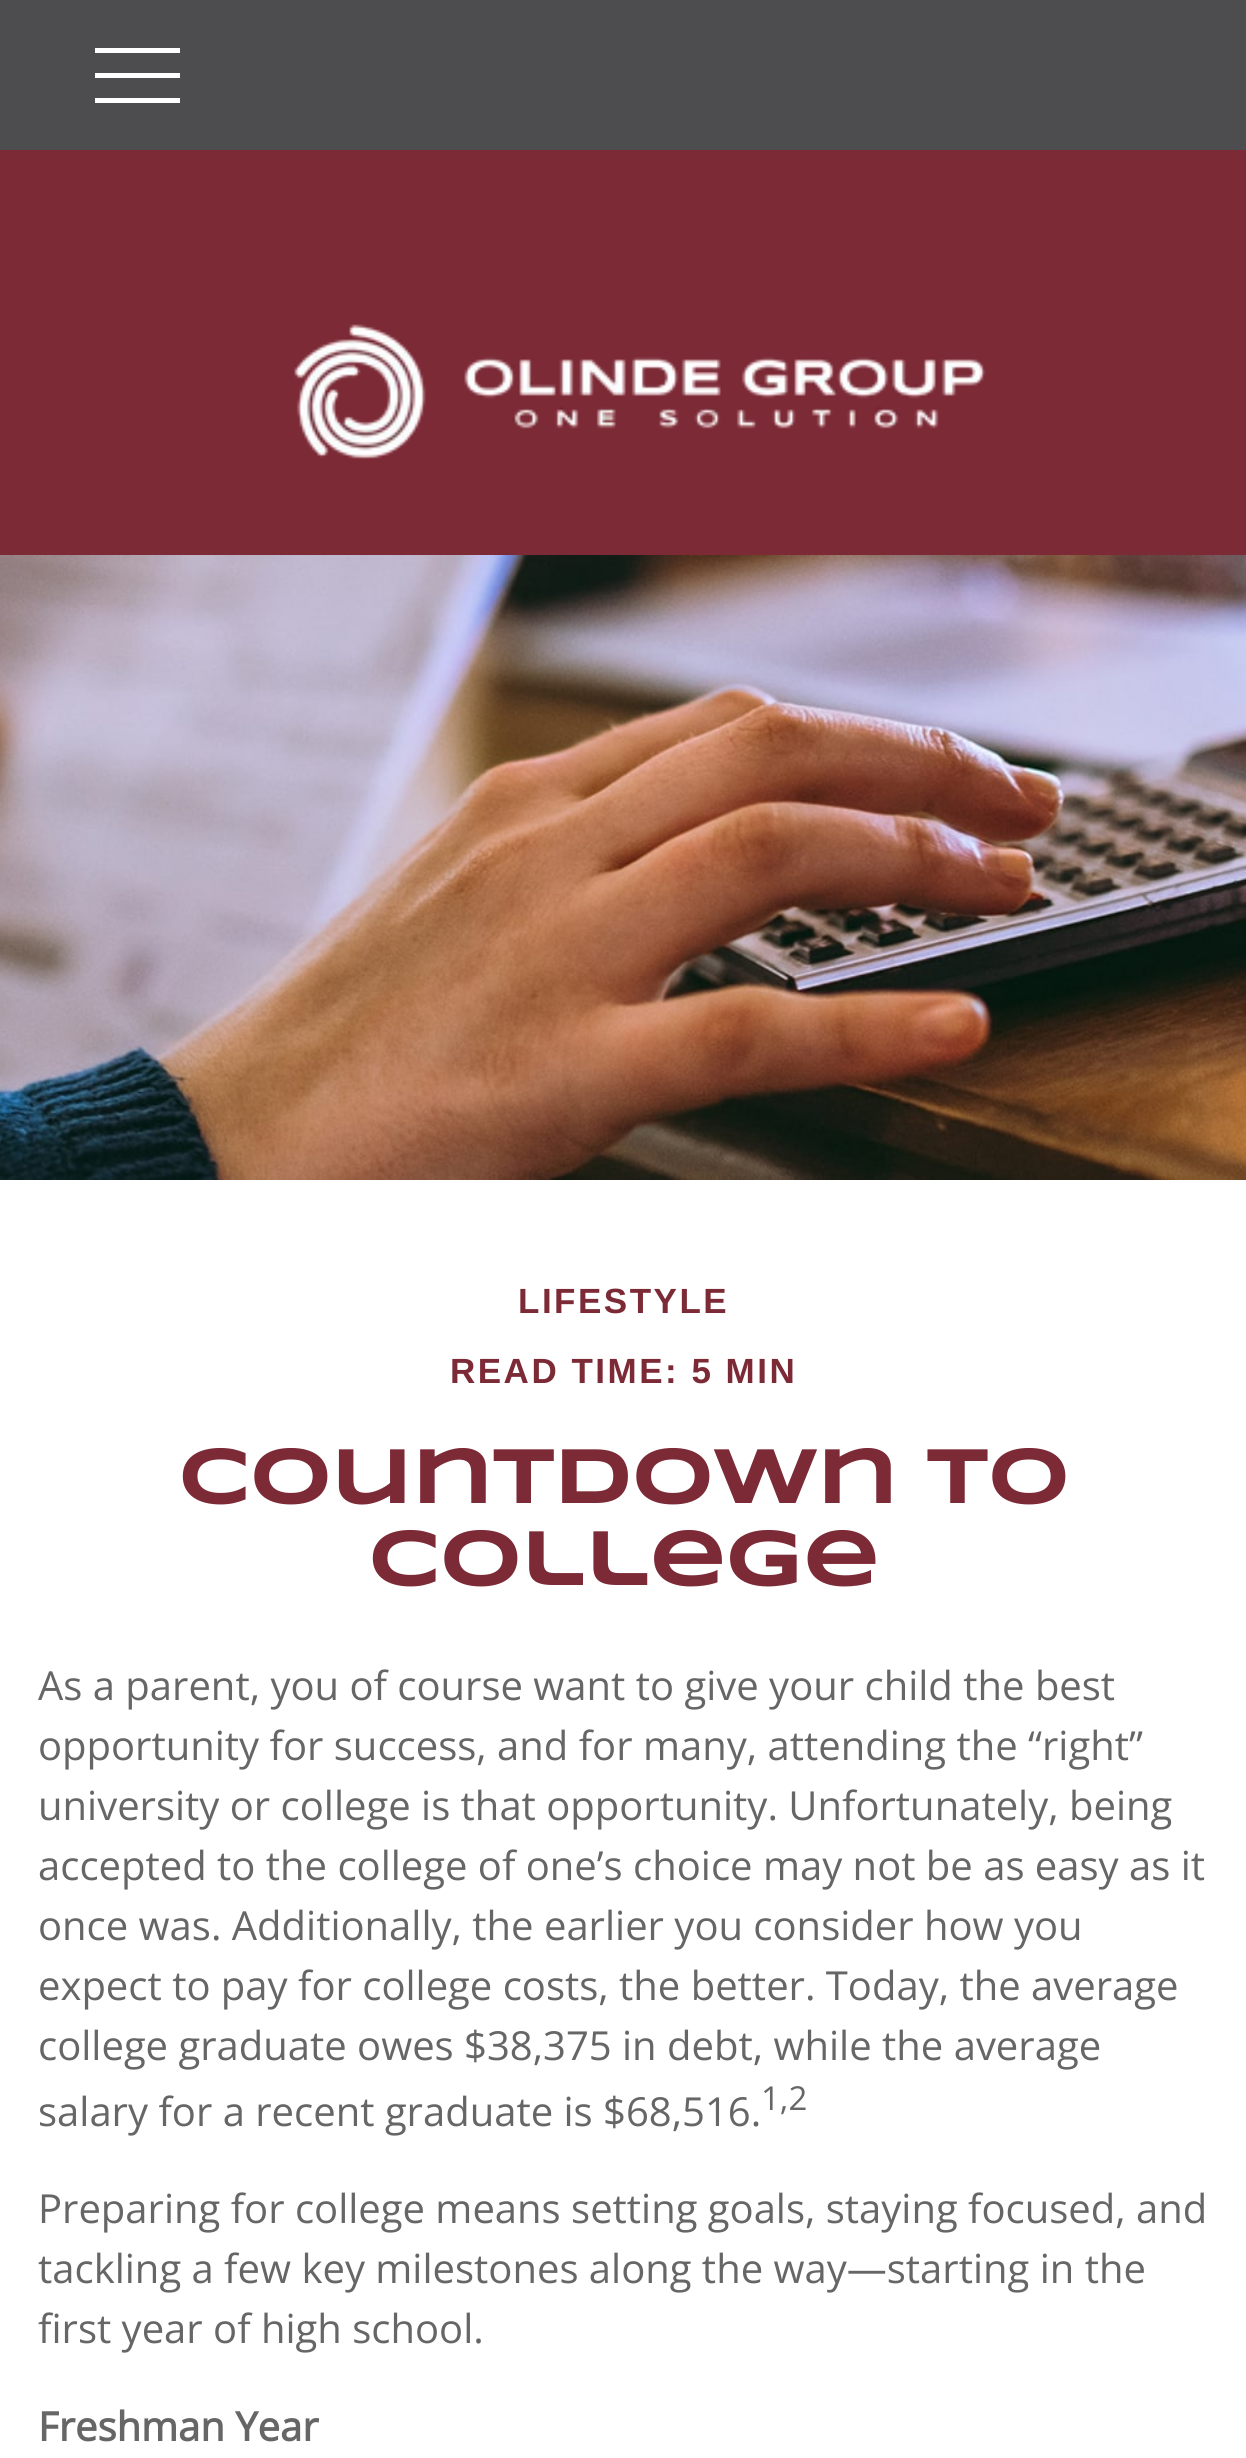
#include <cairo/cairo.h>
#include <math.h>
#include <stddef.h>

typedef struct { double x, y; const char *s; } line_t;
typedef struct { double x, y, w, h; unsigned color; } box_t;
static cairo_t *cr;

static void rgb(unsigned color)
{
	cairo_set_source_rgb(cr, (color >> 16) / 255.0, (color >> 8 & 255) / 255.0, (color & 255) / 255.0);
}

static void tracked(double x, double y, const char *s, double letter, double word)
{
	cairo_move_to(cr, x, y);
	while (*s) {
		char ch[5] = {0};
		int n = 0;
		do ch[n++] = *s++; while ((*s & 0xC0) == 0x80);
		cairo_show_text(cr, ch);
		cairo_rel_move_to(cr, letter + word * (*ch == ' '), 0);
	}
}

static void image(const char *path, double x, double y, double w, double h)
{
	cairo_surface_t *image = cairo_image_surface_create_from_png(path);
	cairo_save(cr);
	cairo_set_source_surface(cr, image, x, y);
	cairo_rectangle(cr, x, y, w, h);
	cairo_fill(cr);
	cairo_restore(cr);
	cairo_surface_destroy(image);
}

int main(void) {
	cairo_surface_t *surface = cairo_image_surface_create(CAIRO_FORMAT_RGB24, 1246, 2458);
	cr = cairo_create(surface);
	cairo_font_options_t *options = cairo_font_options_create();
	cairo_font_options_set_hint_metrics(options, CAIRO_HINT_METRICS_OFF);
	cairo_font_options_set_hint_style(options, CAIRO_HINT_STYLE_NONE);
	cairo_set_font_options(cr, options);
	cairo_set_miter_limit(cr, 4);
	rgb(0xffffff);
	cairo_paint(cr);
	{
		static const box_t items[] = {
			{0, 150, 1246, 405, 0x7c2a36},
			{0, 0, 1246, 150, 0x4d4d4f},
			{95, 73, 85, 5, 0xfefefe},
			{95, 48, 85, 5, 0xfefefe},
			{95, 98, 85, 5, 0xfefefe},
		};
		for (size_t i = 0; i < sizeof items / sizeof *items; i++) {
			rgb(items[i].color);
			cairo_rectangle(cr, items[i].x, items[i].y, items[i].w, items[i].h);
			cairo_fill(cr);
		}
	}
	image("img/1.png", 294, 324, 692, 135);
	image("img/2.png", 0, 555, 1246, 625);
	cairo_select_font_face(cr, "Liberation Sans", CAIRO_FONT_SLANT_NORMAL, CAIRO_FONT_WEIGHT_BOLD);
	cairo_set_font_size(cr, 35);
	rgb(0x7c2a36);
	tracked(518, 1313, "LIFESTYLE", 2.5, 0);
	tracked(450, 1383, "READ TIME: 5 MIN", 2.5, 0);
	cairo_select_font_face(cr, "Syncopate", CAIRO_FONT_SLANT_NORMAL, CAIRO_FONT_WEIGHT_BOLD);
	cairo_set_font_size(cr, 80);
	tracked(178, 1503, "Countdown to", -1.25, 0);
	tracked(368, 1585, "College", -1.25, 0);
	cairo_select_font_face(cr, "Open Sans", CAIRO_FONT_SLANT_NORMAL, CAIRO_FONT_WEIGHT_NORMAL);
	cairo_set_font_size(cr, 40);
	rgb(0x666666);
	{
		static const line_t items[] = {
			{38, 1700, "As a parent, you of course want to give your child the best"},
			{38, 1760, "opportunity for success, and for many, attending the “right”"},
			{38, 1820, "university or college is that opportunity. Unfortunately, being"},
			{38, 1880, "accepted to the college of one’s choice may not be as easy as it"},
			{38, 1940, "once was. Additionally, the earlier you consider how you"},
			{38, 2000, "expect to pay for college costs, the better. Today, the average"},
			{38, 2060, "college graduate owes $38,375 in debt, while the average"},
			{38, 2126, "salary for a recent graduate is $68,516."},
		};
		for (size_t i = 0; i < sizeof items / sizeof *items; i++) {
			cairo_move_to(cr, items[i].x, items[i].y);
			cairo_show_text(cr, items[i].s);
		}
	}
	cairo_set_font_size(cr, 33);
	cairo_move_to(cr, 761, 2110);
	cairo_show_text(cr, "1,2");
	cairo_set_font_size(cr, 40);
	{
		static const line_t items[] = {
			{38, 2223, "Preparing for college means setting goals, staying focused, and"},
			{38, 2283, "tackling a few key milestones along the way—starting in the"},
			{38, 2343, "first year of high school."},
		};
		for (size_t i = 0; i < sizeof items / sizeof *items; i++) {
			cairo_move_to(cr, items[i].x, items[i].y);
			cairo_show_text(cr, items[i].s);
		}
	}
	cairo_select_font_face(cr, "Open Sans", CAIRO_FONT_SLANT_NORMAL, CAIRO_FONT_WEIGHT_BOLD);
	cairo_move_to(cr, 38, 2441);
	cairo_show_text(cr, "Freshman Year");
	cairo_surface_write_to_png(surface, "page.png");
	cairo_font_options_destroy(options);
	cairo_destroy(cr);
	cairo_surface_destroy(surface);
	return 0;
}
